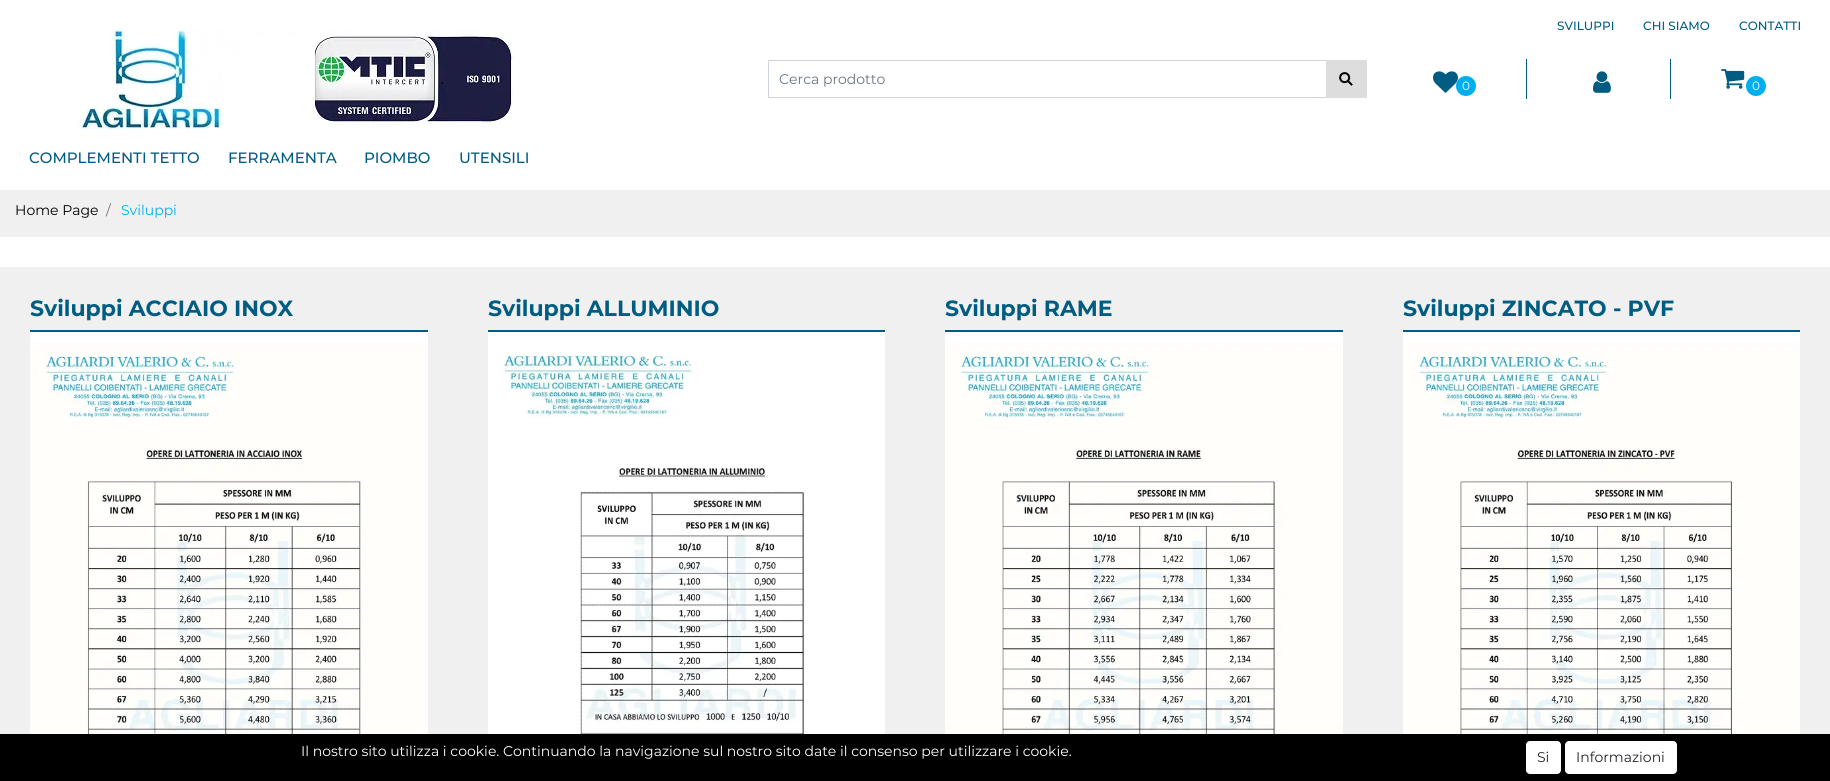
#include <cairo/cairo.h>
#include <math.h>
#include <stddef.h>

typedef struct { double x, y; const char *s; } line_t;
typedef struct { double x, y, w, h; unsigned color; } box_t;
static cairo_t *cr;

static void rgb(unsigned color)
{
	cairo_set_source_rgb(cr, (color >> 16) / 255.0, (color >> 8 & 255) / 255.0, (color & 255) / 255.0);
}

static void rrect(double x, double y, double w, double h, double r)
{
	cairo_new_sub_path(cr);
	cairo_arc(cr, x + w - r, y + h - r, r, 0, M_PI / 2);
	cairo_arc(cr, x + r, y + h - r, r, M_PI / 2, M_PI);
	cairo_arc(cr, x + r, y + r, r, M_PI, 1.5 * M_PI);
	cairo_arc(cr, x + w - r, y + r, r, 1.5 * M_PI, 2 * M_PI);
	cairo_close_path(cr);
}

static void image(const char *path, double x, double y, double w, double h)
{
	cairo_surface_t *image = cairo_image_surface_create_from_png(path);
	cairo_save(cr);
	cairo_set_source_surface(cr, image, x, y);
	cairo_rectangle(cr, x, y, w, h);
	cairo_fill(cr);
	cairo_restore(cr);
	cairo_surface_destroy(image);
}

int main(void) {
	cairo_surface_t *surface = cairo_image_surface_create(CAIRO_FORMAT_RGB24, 1830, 781);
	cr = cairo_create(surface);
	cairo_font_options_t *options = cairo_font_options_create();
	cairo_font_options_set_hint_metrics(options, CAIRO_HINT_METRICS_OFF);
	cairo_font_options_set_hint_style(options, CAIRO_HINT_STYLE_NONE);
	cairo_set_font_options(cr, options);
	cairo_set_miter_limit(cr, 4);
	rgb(0xf0f0f0);
	cairo_paint(cr);
	rgb(0xffffff);
	cairo_rectangle(cr, 0, 0, 1830, 190);
	cairo_fill(cr);
	image("img/1.png", 78, 29, 436, 100);
	{
		static const box_t items[] = {
			{768, 60, 558, 1, 0xced4da},
			{768, 97, 558, 1, 0xced4da},
			{768, 60, 1, 38, 0xced4da},
			{1326, 60, 41, 38, 0xdddddd},
		};
		for (size_t i = 0; i < sizeof items / sizeof *items; i++) {
			rgb(items[i].color);
			cairo_rectangle(cr, items[i].x, items[i].y, items[i].w, items[i].h);
			cairo_fill(cr);
		}
	}
	image("img/2.png", 1339, 72, 14, 14);
	image("img/3.png", 1433, 71, 25, 22);
	rgb(0x00aeef);
	cairo_arc(cr, 1466, 86, 10, 0, 2 * M_PI);
	cairo_fill(cr);
	rgb(0x005d81);
	cairo_rectangle(cr, 1670, 59, 1, 40);
	cairo_fill(cr);
	cairo_rectangle(cr, 1526, 59, 1, 40);
	cairo_fill(cr);
	image("img/4.png", 1593, 71, 18, 22);
	image("img/5.png", 1721, 69, 24, 20);
	rgb(0x00aeef);
	cairo_arc(cr, 1756, 86, 10, 0, 2 * M_PI);
	cairo_fill(cr);
	rgb(0xffffff);
	cairo_rectangle(cr, 0, 237, 1830, 30);
	cairo_fill(cr);
	rgb(0x005d81);
	cairo_rectangle(cr, 30, 330, 398, 2);
	cairo_fill(cr);
	image("img/6.png", 30, 332, 398, 402);
	cairo_rectangle(cr, 488, 330, 397, 2);
	cairo_fill(cr);
	image("img/7.png", 488, 332, 397, 402);
	cairo_rectangle(cr, 945, 330, 398, 2);
	cairo_fill(cr);
	image("img/8.png", 945, 332, 398, 402);
	cairo_rectangle(cr, 1403, 330, 397, 2);
	cairo_fill(cr);
	image("img/9.png", 1403, 332, 397, 402);
	rgb(0x000000);
	cairo_rectangle(cr, 0, 734, 1830, 47);
	cairo_fill(cr);
	rgb(0xffffff);
	rrect(1526, 741, 35, 33, 4);
	cairo_fill(cr);
	rrect(1565, 741, 112, 33, 4);
	cairo_fill(cr);
	cairo_select_font_face(cr, "Montserrat Medium", CAIRO_FONT_SLANT_NORMAL, CAIRO_FONT_WEIGHT_NORMAL);
	cairo_set_font_size(cr, 12);
	rgb(0x005d81);
	{
		static const line_t items[] = {
			{1557, 30, "SVILUPPI"},
			{1643, 30, "CHI SIAMO"},
			{1739, 30, "CONTATTI"},
		};
		for (size_t i = 0; i < sizeof items / sizeof *items; i++) {
			cairo_move_to(cr, items[i].x, items[i].y);
			cairo_show_text(cr, items[i].s);
		}
	}
	cairo_select_font_face(cr, "Montserrat", CAIRO_FONT_SLANT_NORMAL, CAIRO_FONT_WEIGHT_NORMAL);
	cairo_set_font_size(cr, 14);
	rgb(0x6c757d);
	cairo_move_to(cr, 779, 84);
	cairo_show_text(cr, "Cerca prodotto");
	cairo_set_font_size(cr, 12);
	rgb(0xffffff);
	cairo_move_to(cr, 1462, 90);
	cairo_show_text(cr, "0");
	cairo_move_to(cr, 1752, 90);
	cairo_show_text(cr, "0");
	cairo_select_font_face(cr, "Montserrat Medium", CAIRO_FONT_SLANT_NORMAL, CAIRO_FONT_WEIGHT_NORMAL);
	cairo_set_font_size(cr, 15);
	rgb(0x005d81);
	{
		static const line_t items[] = {
			{29, 163, "COMPLEMENTI TETTO"},
			{228, 163, "FERRAMENTA"},
			{364, 163, "PIOMBO"},
			{459, 163, "UTENSILI"},
		};
		for (size_t i = 0; i < sizeof items / sizeof *items; i++) {
			cairo_move_to(cr, items[i].x, items[i].y);
			cairo_show_text(cr, items[i].s);
		}
	}
	cairo_select_font_face(cr, "Montserrat", CAIRO_FONT_SLANT_NORMAL, CAIRO_FONT_WEIGHT_NORMAL);
	cairo_set_font_size(cr, 14);
	rgb(0x000000);
	cairo_move_to(cr, 15, 215);
	cairo_show_text(cr, "Home Page");
	rgb(0x6c757d);
	cairo_move_to(cr, 106, 215);
	cairo_show_text(cr, "/");
	rgb(0x00aeef);
	cairo_move_to(cr, 121, 215);
	cairo_show_text(cr, "Sviluppi");
	cairo_select_font_face(cr, "Montserrat", CAIRO_FONT_SLANT_NORMAL, CAIRO_FONT_WEIGHT_BOLD);
	cairo_set_font_size(cr, 22);
	rgb(0x005d81);
	{
		static const line_t items[] = {
			{30, 316, "Sviluppi ACCIAIO INOX"},
			{488, 316, "Sviluppi ALLUMINIO"},
			{945, 316, "Sviluppi RAME"},
			{1403, 316, "Sviluppi ZINCATO - PVF"},
		};
		for (size_t i = 0; i < sizeof items / sizeof *items; i++) {
			cairo_move_to(cr, items[i].x, items[i].y);
			cairo_show_text(cr, items[i].s);
		}
	}
	cairo_select_font_face(cr, "Montserrat", CAIRO_FONT_SLANT_NORMAL, CAIRO_FONT_WEIGHT_NORMAL);
	cairo_set_font_size(cr, 14);
	rgb(0xffffff);
	cairo_move_to(cr, 301, 756);
	cairo_show_text(cr, "Il nostro sito utilizza i cookie. Continuando la navigazione sul nostro sito date il consenso per utilizzare i cookie.");
	rgb(0x212529);
	cairo_move_to(cr, 1537, 762);
	cairo_show_text(cr, "Si");
	cairo_move_to(cr, 1576, 762);
	cairo_show_text(cr, "Informazioni");
	cairo_surface_write_to_png(surface, "page.png");
	cairo_font_options_destroy(options);
	cairo_destroy(cr);
	cairo_surface_destroy(surface);
	return 0;
}
